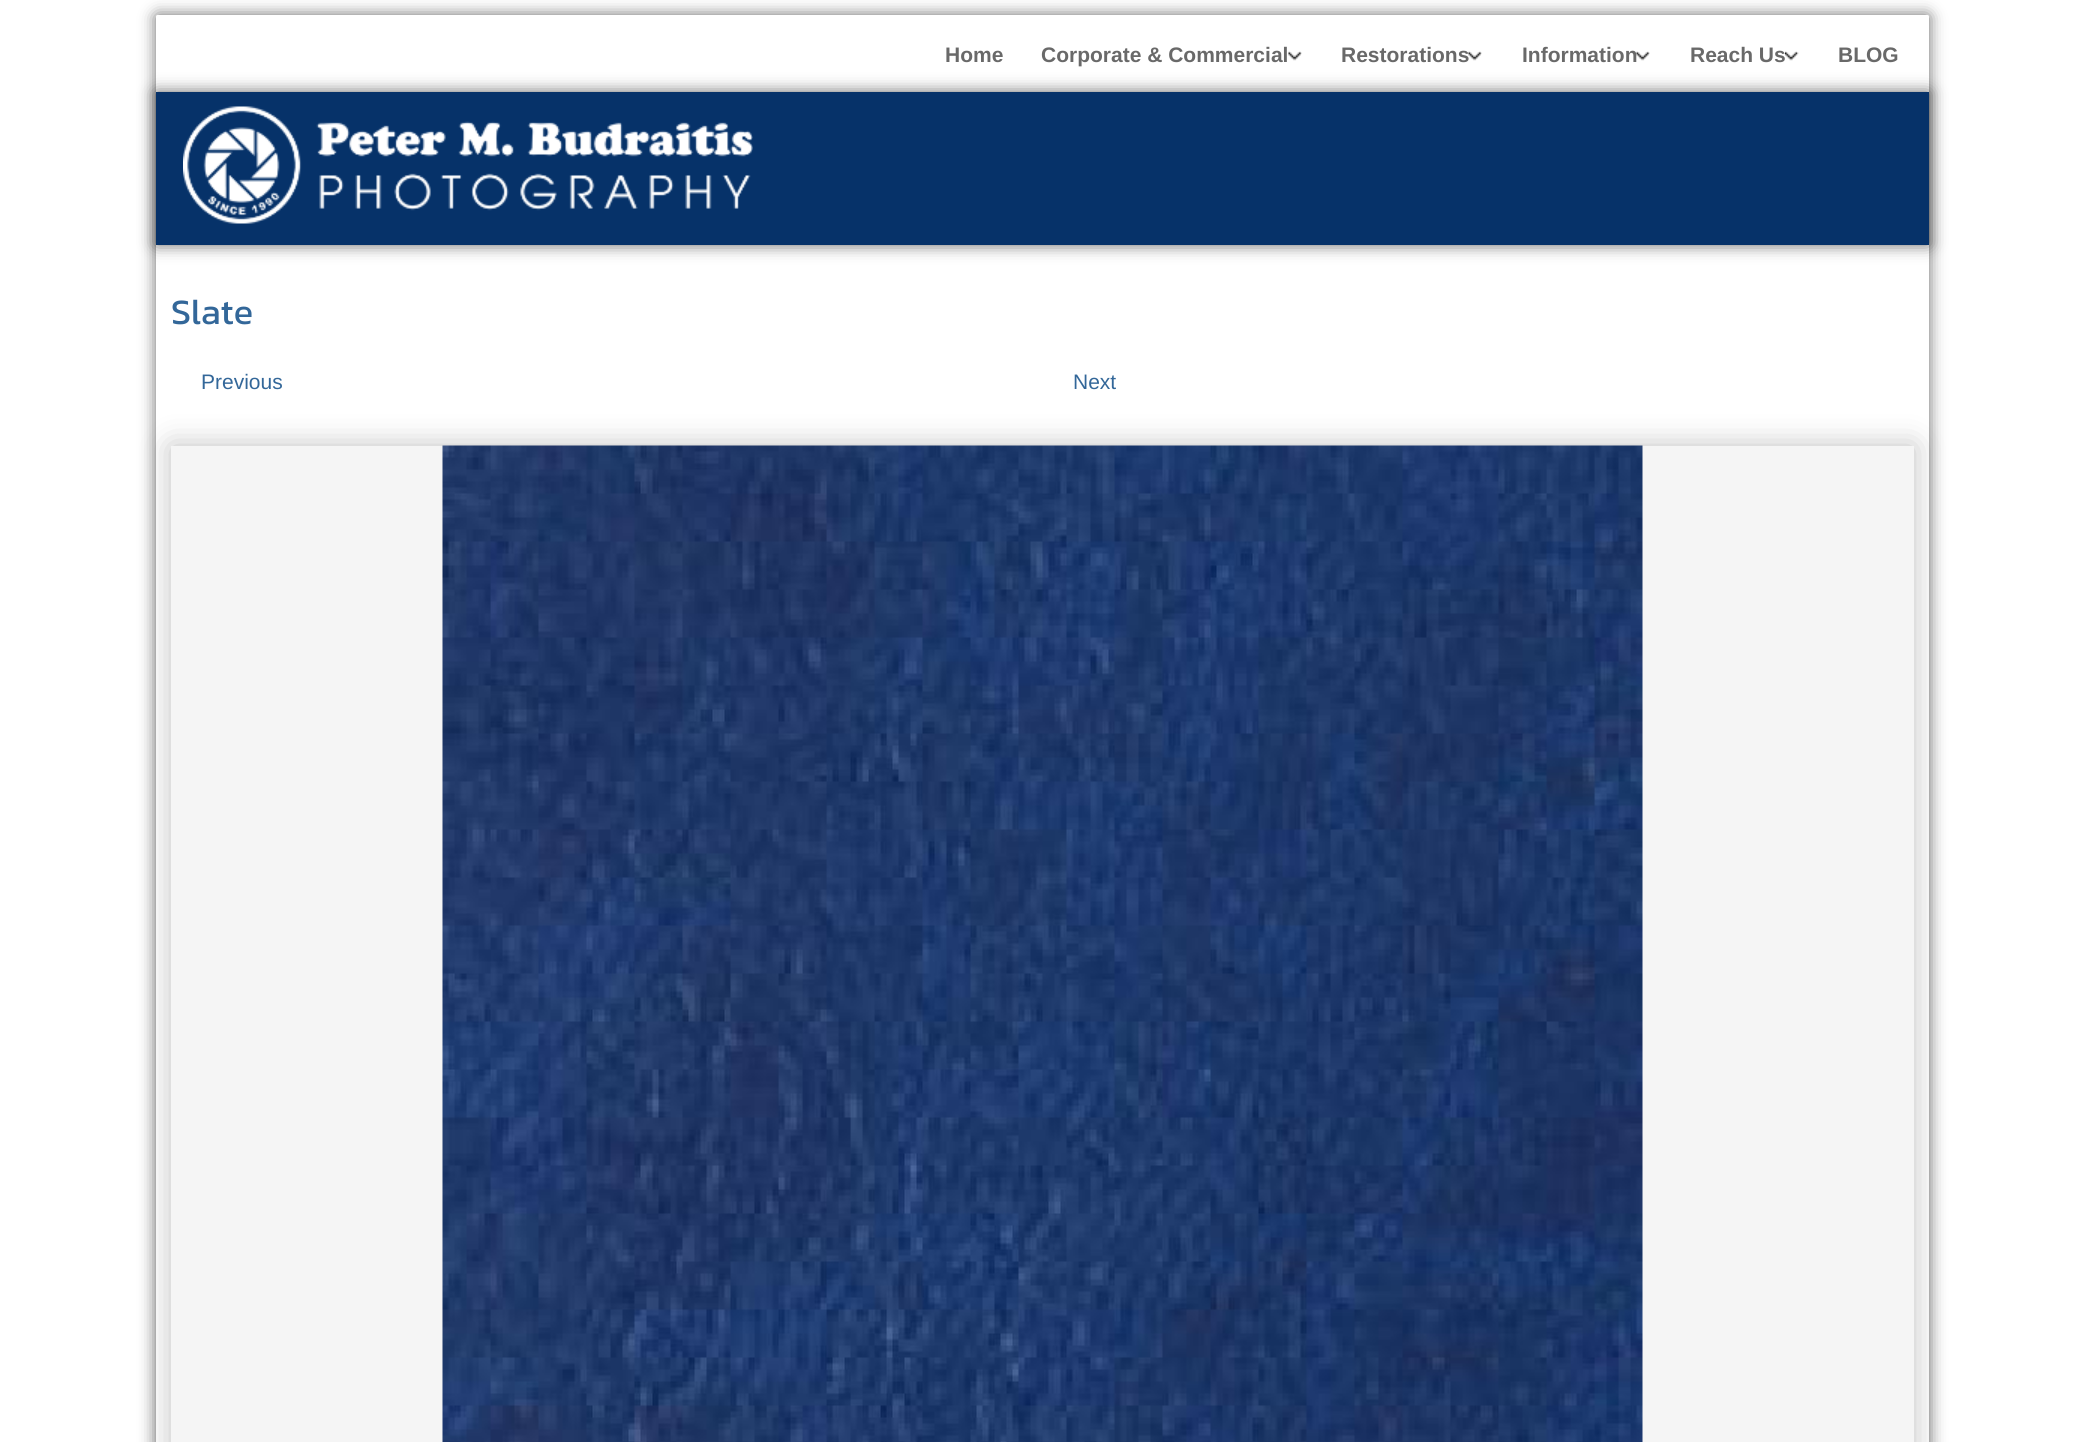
#include <cairo/cairo.h>
#include <math.h>
#include <stddef.h>

typedef struct { double x, y; const char *s; } line_t;
static cairo_t *cr;

static void rgb(unsigned color)
{
	cairo_set_source_rgb(cr, (color >> 16) / 255.0, (color >> 8 & 255) / 255.0, (color & 255) / 255.0);
}

static void rrect(double x, double y, double w, double h, double r)
{
	cairo_new_sub_path(cr);
	cairo_arc(cr, x + w - r, y + h - r, r, 0, M_PI / 2);
	cairo_arc(cr, x + r, y + h - r, r, M_PI / 2, M_PI);
	cairo_arc(cr, x + r, y + r, r, M_PI, 1.5 * M_PI);
	cairo_arc(cr, x + w - r, y + r, r, 1.5 * M_PI, 2 * M_PI);
	cairo_close_path(cr);
}

static void soft_shadow(double x, double y, double w, double h, double r, double blur, double alpha)
{
	cairo_push_group_with_content(cr, CAIRO_CONTENT_ALPHA);
	cairo_set_operator(cr, CAIRO_OPERATOR_SOURCE);
	for (int i = 15; i >= -15 && fmin(w, h) + blur * i / 3 > 0; i -= 2) {
		double e = blur * i / 6;
		cairo_set_source_rgba(cr, 0, 0, 0, alpha * erfc((i - 1) / 8.5) / 2);
		rrect(x - e, y - e, w + 2 * e, h + 2 * e, fmax(0, fmin(r + e + blur * .6, fmin(w, h) / 2 + e)));
		cairo_fill(cr);
	}
	cairo_pattern_t *soft = cairo_pop_group(cr);
	cairo_mask(cr, soft);
	cairo_pattern_destroy(soft);
}

static void image(const char *path, double x, double y, double w, double h)
{
	cairo_surface_t *image = cairo_image_surface_create_from_png(path);
	cairo_save(cr);
	cairo_set_source_surface(cr, image, x, y);
	cairo_rectangle(cr, x, y, w, h);
	cairo_fill(cr);
	cairo_restore(cr);
	cairo_surface_destroy(image);
}

int main(void) {
	cairo_surface_t *surface = cairo_image_surface_create(CAIRO_FORMAT_RGB24, 2084, 1442);
	cr = cairo_create(surface);
	cairo_font_options_t *options = cairo_font_options_create();
	cairo_font_options_set_hint_metrics(options, CAIRO_HINT_METRICS_OFF);
	cairo_font_options_set_hint_style(options, CAIRO_HINT_STYLE_NONE);
	cairo_set_font_options(cr, options);
	cairo_set_miter_limit(cr, 4);
	rgb(0xffffff);
	cairo_paint(cr);
	rgb(0x000000);
	soft_shadow(156, 15, 1773, 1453, 1.5, 8, 0.59);
	rgb(0xffffff);
	rrect(156, 15, 1773, 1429, 1.5);
	cairo_fill(cr);
	image("img/1.png", 1288, 51, 14, 10);
	image("img/1.png", 1468, 51, 14, 10);
	image("img/2.png", 1636, 51, 14, 10);
	image("img/3.png", 1785, 51, 14, 10);
	rgb(0x000000);
	soft_shadow(156, 92, 1773, 153, 0, 8, 0.59);
	rgb(0x063269);
	cairo_rectangle(cr, 156, 92, 1773, 153);
	cairo_fill(cr);
	image("img/4.png", 183, 106, 570, 118);
	rgb(0x000000);
	soft_shadow(171, 446, 1743, 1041, 0, 15, 0.25);
	rgb(0xf5f5f5);
	cairo_rectangle(cr, 171, 446, 1743, 996);
	cairo_fill(cr);
	image("img/5.png", 442, 445, 1201, 997);
	cairo_select_font_face(cr, "Liberation Sans", CAIRO_FONT_SLANT_NORMAL, CAIRO_FONT_WEIGHT_BOLD);
	cairo_set_font_size(cr, 21);
	rgb(0x696969);
	{
		static const line_t items[] = {
			{945, 62, "Home"},
			{1041, 62, "Corporate & Commercial"},
			{1341, 62, "Restorations"},
			{1522, 62, "Information"},
			{1690, 62, "Reach Us"},
			{1838, 62, "BLOG"},
		};
		for (size_t i = 0; i < sizeof items / sizeof *items; i++) {
			cairo_move_to(cr, items[i].x, items[i].y);
			cairo_show_text(cr, items[i].s);
		}
	}
	cairo_select_font_face(cr, "Kanit", CAIRO_FONT_SLANT_NORMAL, CAIRO_FONT_WEIGHT_NORMAL);
	cairo_set_font_size(cr, 36);
	rgb(0x336799);
	cairo_move_to(cr, 171, 324);
	cairo_show_text(cr, "Slate");
	cairo_select_font_face(cr, "Liberation Sans", CAIRO_FONT_SLANT_NORMAL, CAIRO_FONT_WEIGHT_NORMAL);
	cairo_set_font_size(cr, 21);
	cairo_move_to(cr, 201, 389);
	cairo_show_text(cr, "Previous");
	cairo_move_to(cr, 1073, 389);
	cairo_show_text(cr, "Next");
	cairo_surface_write_to_png(surface, "page.png");
	cairo_font_options_destroy(options);
	cairo_destroy(cr);
	cairo_surface_destroy(surface);
	return 0;
}
